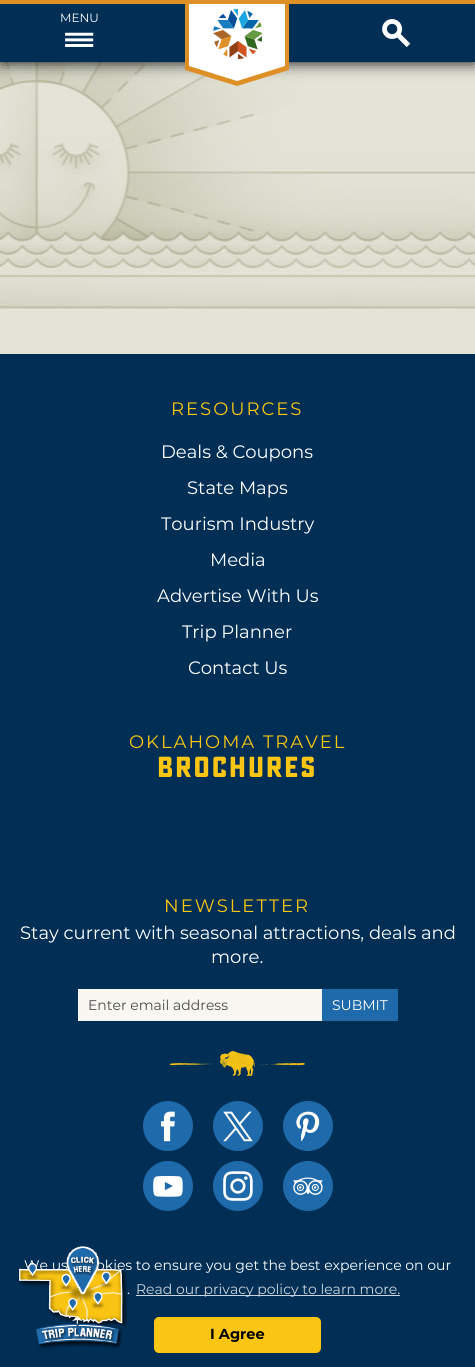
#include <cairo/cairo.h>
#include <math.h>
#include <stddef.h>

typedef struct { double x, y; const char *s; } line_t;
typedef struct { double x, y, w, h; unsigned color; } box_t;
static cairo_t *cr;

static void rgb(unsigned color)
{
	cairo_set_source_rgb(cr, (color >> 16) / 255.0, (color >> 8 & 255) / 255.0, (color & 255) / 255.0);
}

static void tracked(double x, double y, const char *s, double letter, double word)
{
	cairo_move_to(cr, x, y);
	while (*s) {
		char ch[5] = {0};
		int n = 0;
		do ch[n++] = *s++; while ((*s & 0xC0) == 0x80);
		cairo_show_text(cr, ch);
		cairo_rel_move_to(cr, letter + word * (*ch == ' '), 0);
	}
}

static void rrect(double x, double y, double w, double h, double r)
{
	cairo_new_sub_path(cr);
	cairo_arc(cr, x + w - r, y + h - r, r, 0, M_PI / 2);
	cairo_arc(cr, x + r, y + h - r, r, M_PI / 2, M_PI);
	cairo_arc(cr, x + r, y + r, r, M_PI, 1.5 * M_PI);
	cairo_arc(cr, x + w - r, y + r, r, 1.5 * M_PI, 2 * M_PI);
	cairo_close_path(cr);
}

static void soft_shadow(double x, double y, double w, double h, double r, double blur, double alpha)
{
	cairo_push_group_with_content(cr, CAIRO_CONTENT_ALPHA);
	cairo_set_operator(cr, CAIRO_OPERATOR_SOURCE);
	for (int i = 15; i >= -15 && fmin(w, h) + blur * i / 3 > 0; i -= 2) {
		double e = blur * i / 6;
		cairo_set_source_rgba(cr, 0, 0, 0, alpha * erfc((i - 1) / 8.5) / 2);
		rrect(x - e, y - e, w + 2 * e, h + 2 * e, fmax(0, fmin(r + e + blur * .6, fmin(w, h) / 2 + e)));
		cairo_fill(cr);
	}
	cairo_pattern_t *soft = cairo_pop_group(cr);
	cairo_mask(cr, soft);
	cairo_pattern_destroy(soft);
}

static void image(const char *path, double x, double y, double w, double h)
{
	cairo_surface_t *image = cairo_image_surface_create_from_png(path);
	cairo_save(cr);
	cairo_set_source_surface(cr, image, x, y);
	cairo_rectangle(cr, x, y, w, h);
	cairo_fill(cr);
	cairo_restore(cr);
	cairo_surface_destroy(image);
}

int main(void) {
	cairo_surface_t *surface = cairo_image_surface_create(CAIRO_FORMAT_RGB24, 475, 1367);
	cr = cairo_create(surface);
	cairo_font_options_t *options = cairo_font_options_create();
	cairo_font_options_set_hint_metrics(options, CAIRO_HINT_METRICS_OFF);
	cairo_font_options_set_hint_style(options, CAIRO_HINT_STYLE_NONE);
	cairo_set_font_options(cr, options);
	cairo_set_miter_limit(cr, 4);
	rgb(0xe3e3d7);
	cairo_paint(cr);
	image("img/4.png", 0, 62, 475, 247);
	rgb(0x000000);
	soft_shadow(0, 0, 475, 62, 0, 8, 1);
	rgb(0x002e55);
	cairo_rectangle(cr, 0, 4, 475, 58);
	cairo_fill(cr);
	rgb(0xde9027);
	cairo_rectangle(cr, 0, 0, 475, 4);
	cairo_fill(cr);
	image("img/1.png", 65, 32, 29, 15);
	{
		static const box_t items[] = {
			{189, 4, 96, 62, 0xffffff},
			{285, 4, 4, 66, 0xde9027},
			{185, 66, 104, 4, 0xde9027},
			{185, 4, 4, 66, 0xde9027},
		};
		for (size_t i = 0; i < sizeof items / sizeof *items; i++) {
			rgb(items[i].color);
			cairo_rectangle(cr, items[i].x, items[i].y, items[i].w, items[i].h);
			cairo_fill(cr);
		}
	}
	image("img/2.png", 213, 9, 49, 50);
	cairo_new_path(cr);
	cairo_move_to(cr, 185, 70);
	cairo_line_to(cr, 289, 70);
	cairo_line_to(cr, 237, 86);
	cairo_close_path(cr);
	cairo_fill(cr);
	rgb(0xffffff);
	cairo_new_path(cr);
	cairo_move_to(cr, 189, 66);
	cairo_line_to(cr, 285, 66);
	cairo_line_to(cr, 237, 81);
	cairo_close_path(cr);
	cairo_fill(cr);
	image("img/3.png", 382, 19, 29, 28);
	{
		static const box_t items[] = {
			{0, 354, 475, 1013, 0x002e55},
			{78, 989, 244, 32, 0xf8f7f2},
			{322, 989, 76, 32, 0x1e6aaa},
		};
		for (size_t i = 0; i < sizeof items / sizeof *items; i++) {
			rgb(items[i].color);
			cairo_rectangle(cr, items[i].x, items[i].y, items[i].w, items[i].h);
			cairo_fill(cr);
		}
	}
	image("img/5.png", 170, 1051, 135, 25);
	cairo_arc(cr, 168, 1126, 25, 0, 2 * M_PI);
	cairo_fill(cr);
	image("img/6.png", 161, 1111, 14, 31);
	cairo_arc(cr, 238, 1126, 25, 0, 2 * M_PI);
	cairo_fill(cr);
	image("img/7.png", 223, 1111, 30, 31);
	cairo_arc(cr, 308, 1126, 25, 0, 2 * M_PI);
	cairo_fill(cr);
	image("img/8.png", 296, 1111, 24, 31);
	cairo_arc(cr, 168, 1186, 25, 0, 2 * M_PI);
	cairo_fill(cr);
	image("img/9.png", 153, 1176, 30, 21);
	cairo_arc(cr, 238, 1186, 25, 0, 2 * M_PI);
	cairo_fill(cr);
	image("img/10.png", 223, 1171, 30, 30);
	cairo_arc(cr, 308, 1186, 25, 0, 2 * M_PI);
	cairo_fill(cr);
	image("img/11.png", 293, 1177, 30, 18);
	rgb(0xccd5dd);
	cairo_rectangle(cr, 136, 1295, 264, 1);
	cairo_fill(cr);
	rgb(0xfac613);
	rrect(154, 1317, 167, 36, 5);
	cairo_fill(cr);
	cairo_select_font_face(cr, "Montserrat", CAIRO_FONT_SLANT_NORMAL, CAIRO_FONT_WEIGHT_NORMAL);
	cairo_set_font_size(cr, 12);
	rgb(0xffffff);
	cairo_move_to(cr, 60, 22);
	cairo_show_text(cr, "MENU");
	cairo_set_font_size(cr, 18);
	rgb(0xfac613);
	tracked(171, 415, "RESOURCES", 2, 0);
	rgb(0xffffff);
	{
		static const line_t items[] = {
			{161, 458, "Deals & Coupons"},
			{187, 494, "State Maps"},
			{161, 530, "Tourism Industry"},
			{210, 566, "Media"},
			{157, 602, "Advertise With Us"},
			{182, 638, "Trip Planner"},
			{188, 674, "Contact Us"},
		};
		for (size_t i = 0; i < sizeof items / sizeof *items; i++) {
			cairo_move_to(cr, items[i].x, items[i].y);
			cairo_show_text(cr, items[i].s);
		}
	}
	rgb(0xfac613);
	tracked(129, 748, "OKLAHOMA TRAVEL", 2, 0);
	cairo_select_font_face(cr, "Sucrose", CAIRO_FONT_SLANT_NORMAL, CAIRO_FONT_WEIGHT_BOLD);
	cairo_set_font_size(cr, 29);
	tracked(157, 777, "BROCHURES", 1.5, 0);
	cairo_select_font_face(cr, "Montserrat", CAIRO_FONT_SLANT_NORMAL, CAIRO_FONT_WEIGHT_NORMAL);
	cairo_set_font_size(cr, 18);
	tracked(164, 912, "NEWSLETTER", 2, 0);
	rgb(0xffffff);
	cairo_move_to(cr, 20, 939);
	cairo_show_text(cr, "Stay current with seasonal attractions, deals and");
	cairo_move_to(cr, 211, 963);
	cairo_show_text(cr, "more.");
	cairo_set_font_size(cr, 14);
	rgb(0x4b4b4b);
	cairo_move_to(cr, 88, 1010);
	cairo_show_text(cr, "Enter email address");
	rgb(0xffffff);
	{
		static const line_t items[] = {
			{332, 1010, "SUBMIT"},
			{24, 1270, "We us"},
			{96, 1270, "okies to ensure you get the best experience on our"},
			{127, 1294, "."},
		};
		for (size_t i = 0; i < sizeof items / sizeof *items; i++) {
			cairo_move_to(cr, items[i].x, items[i].y);
			cairo_show_text(cr, items[i].s);
		}
	}
	image("img/12.png", 17, 1246, 111, 104);
	rgb(0xccd5dd);
	cairo_move_to(cr, 136, 1294);
	cairo_show_text(cr, "Read our privacy policy to learn more.");
	cairo_select_font_face(cr, "Montserrat", CAIRO_FONT_SLANT_NORMAL, CAIRO_FONT_WEIGHT_BOLD);
	cairo_set_font_size(cr, 14.5);
	rgb(0x000000);
	cairo_move_to(cr, 210, 1339);
	cairo_show_text(cr, "I Agree");
	cairo_surface_write_to_png(surface, "page.png");
	cairo_font_options_destroy(options);
	cairo_destroy(cr);
	cairo_surface_destroy(surface);
	return 0;
}
